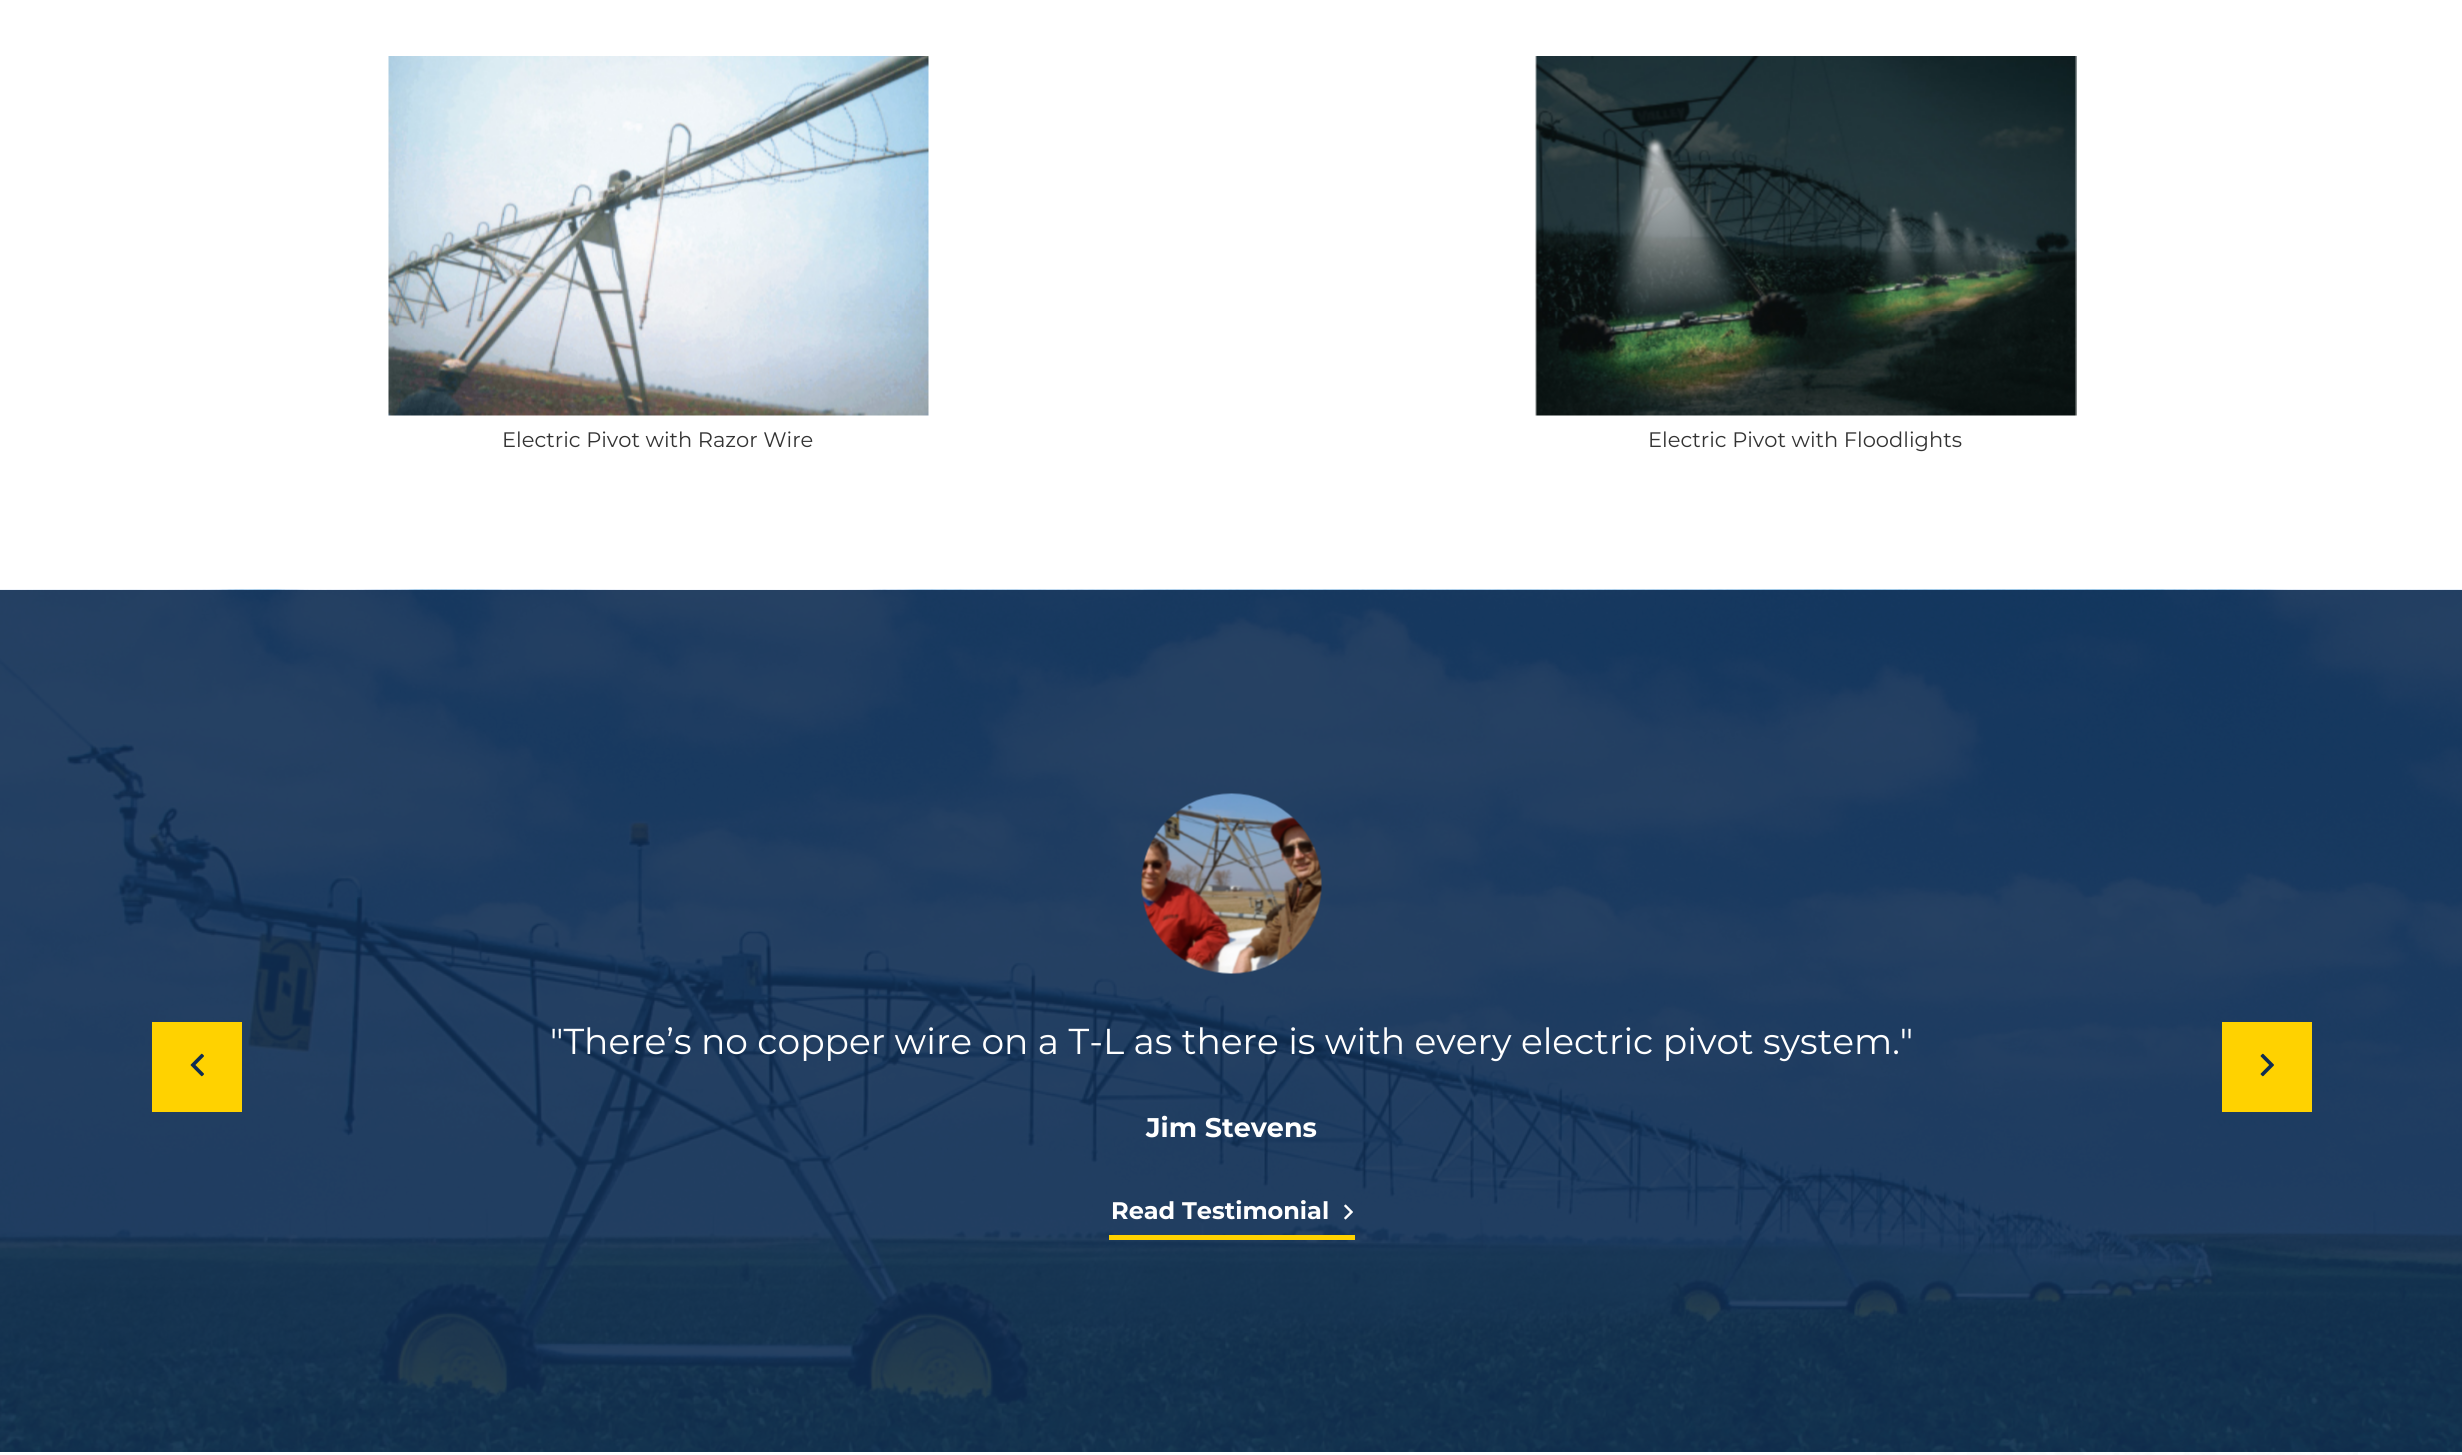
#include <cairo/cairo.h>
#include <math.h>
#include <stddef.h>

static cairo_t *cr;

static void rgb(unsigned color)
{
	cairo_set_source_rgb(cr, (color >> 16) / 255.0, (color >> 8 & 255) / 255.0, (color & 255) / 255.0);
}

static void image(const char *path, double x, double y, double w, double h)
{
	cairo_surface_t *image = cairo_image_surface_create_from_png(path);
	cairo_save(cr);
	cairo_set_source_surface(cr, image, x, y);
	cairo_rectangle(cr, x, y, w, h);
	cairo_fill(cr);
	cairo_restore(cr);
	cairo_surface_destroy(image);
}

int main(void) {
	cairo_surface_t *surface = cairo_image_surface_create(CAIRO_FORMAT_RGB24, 2462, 1455);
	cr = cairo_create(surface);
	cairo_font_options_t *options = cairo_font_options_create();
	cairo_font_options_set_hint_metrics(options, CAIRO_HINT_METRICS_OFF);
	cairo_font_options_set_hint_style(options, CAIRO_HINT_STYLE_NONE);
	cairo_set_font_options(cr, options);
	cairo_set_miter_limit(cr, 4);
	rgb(0xffffff);
	cairo_paint(cr);
	image("img/1.png", 388, 56, 541, 360);
	image("img/2.png", 1535, 56, 542, 360);
	image("img/3.png", 0, 589, 2462, 863);
	rgb(0xffd200);
	cairo_rectangle(cr, 152, 1022, 90, 90);
	cairo_fill(cr);
	image("img/4.png", 190, 1053, 14, 24);
	image("img/5.png", 1141, 793, 181, 181);
	cairo_rectangle(cr, 1109, 1235, 246, 5);
	cairo_fill(cr);
	image("img/6.png", 1344, 1204, 9, 16);
	cairo_rectangle(cr, 2222, 1022, 90, 90);
	cairo_fill(cr);
	image("img/7.png", 2260, 1053, 14, 24);
	image("img/8.png", 1876, 1452, 482, 3);
	cairo_select_font_face(cr, "Montserrat", CAIRO_FONT_SLANT_NORMAL, CAIRO_FONT_WEIGHT_NORMAL);
	cairo_set_font_size(cr, 21);
	rgb(0x333333);
	cairo_move_to(cr, 502, 447);
	cairo_show_text(cr, "Electric Pivot with Razor Wire");
	cairo_move_to(cr, 1648, 447);
	cairo_show_text(cr, "Electric Pivot with Floodlights");
	cairo_set_font_size(cr, 36);
	rgb(0xffffff);
	cairo_move_to(cr, 550, 1054);
	cairo_show_text(cr, "\"There’s no copper wire on a T-L as there is with every electric pivot system.\"");
	cairo_select_font_face(cr, "Montserrat", CAIRO_FONT_SLANT_NORMAL, CAIRO_FONT_WEIGHT_BOLD);
	cairo_set_font_size(cr, 27);
	cairo_move_to(cr, 1146, 1137);
	cairo_show_text(cr, "Jim Stevens");
	cairo_set_font_size(cr, 24);
	cairo_move_to(cr, 1111, 1219);
	cairo_show_text(cr, "Read Testimonial");
	cairo_surface_write_to_png(surface, "page.png");
	cairo_font_options_destroy(options);
	cairo_destroy(cr);
	cairo_surface_destroy(surface);
	return 0;
}
